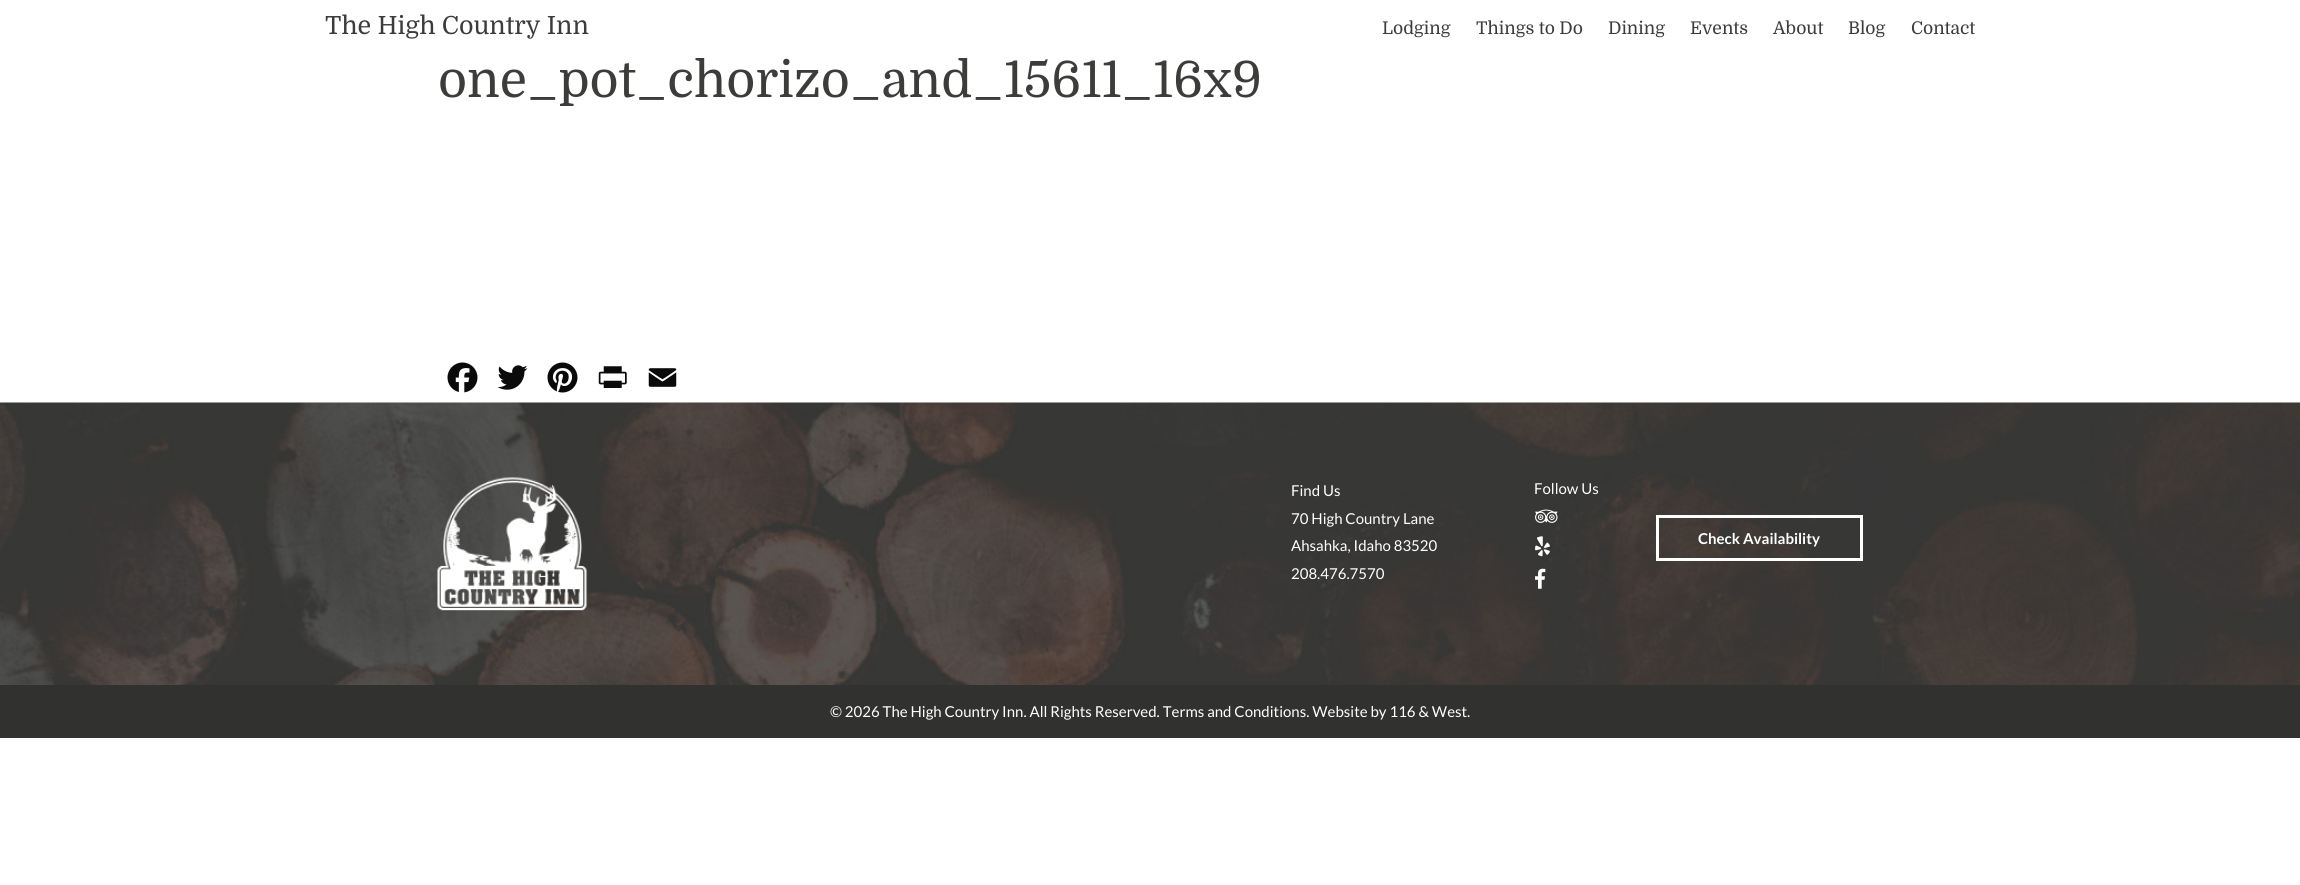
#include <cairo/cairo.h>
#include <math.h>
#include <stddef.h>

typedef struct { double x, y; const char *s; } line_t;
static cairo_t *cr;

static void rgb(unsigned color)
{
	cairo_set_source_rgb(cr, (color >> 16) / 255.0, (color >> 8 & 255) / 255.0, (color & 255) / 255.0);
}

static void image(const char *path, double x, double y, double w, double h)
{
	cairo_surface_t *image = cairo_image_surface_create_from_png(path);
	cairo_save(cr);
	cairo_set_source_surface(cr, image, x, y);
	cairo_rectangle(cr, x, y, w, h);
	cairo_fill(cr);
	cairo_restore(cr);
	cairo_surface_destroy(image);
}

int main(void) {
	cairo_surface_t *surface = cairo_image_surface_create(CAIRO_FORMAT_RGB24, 2300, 885);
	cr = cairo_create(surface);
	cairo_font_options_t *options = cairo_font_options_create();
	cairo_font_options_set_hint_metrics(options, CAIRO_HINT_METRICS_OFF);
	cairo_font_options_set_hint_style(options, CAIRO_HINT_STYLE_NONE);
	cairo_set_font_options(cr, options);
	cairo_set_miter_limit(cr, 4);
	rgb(0xffffff);
	cairo_paint(cr);
	image("img/1.png", 447, 362, 31, 31);
	image("img/2.png", 497, 365, 31, 25);
	image("img/3.png", 547, 362, 31, 31);
	image("img/4.png", 598, 366, 29, 22);
	image("img/5.png", 648, 368, 29, 19);
	image("img/6.png", 0, 402, 2300, 283);
	image("img/7.png", 437, 477, 151, 134);
	image("img/8.png", 1535, 509, 23, 14);
	image("img/9.png", 1535, 536, 15, 21);
	image("img/10.png", 1535, 568, 11, 21);
	cairo_rectangle(cr, 1657.5, 516.5, 204, 43);
	rgb(0xffffff);
	cairo_set_line_width(cr, 3);
	cairo_stroke(cr);
	rgb(0x313130);
	cairo_rectangle(cr, 0, 685, 2300, 53);
	cairo_fill(cr);
	cairo_select_font_face(cr, "Domine", CAIRO_FONT_SLANT_NORMAL, CAIRO_FONT_WEIGHT_NORMAL);
	cairo_set_font_size(cr, 25);
	rgb(0x3c3c3b);
	cairo_move_to(cr, 325, 34);
	cairo_show_text(cr, "The High Country Inn");
	cairo_set_font_size(cr, 17.5);
	{
		static const line_t items[] = {
			{1382, 34, "Lodging"},
			{1476, 34, "Things to Do"},
			{1608, 34, "Dining"},
			{1690, 34, "Events"},
			{1773, 34, "About"},
			{1848, 34, "Blog"},
			{1911, 34, "Contact"},
		};
		for (size_t i = 0; i < sizeof items / sizeof *items; i++) {
			cairo_move_to(cr, items[i].x, items[i].y);
			cairo_show_text(cr, items[i].s);
		}
	}
	cairo_set_font_size(cr, 50);
	cairo_move_to(cr, 438, 97);
	cairo_show_text(cr, "one_pot_chorizo_and_15611_16x9");
	cairo_select_font_face(cr, "Lato", CAIRO_FONT_SLANT_NORMAL, CAIRO_FONT_WEIGHT_NORMAL);
	cairo_set_font_size(cr, 15);
	rgb(0xffffff);
	{
		static const line_t items[] = {
			{1291, 496, "Find Us"},
			{1291, 524, "70 High Country Lane"},
			{1291, 551, "Ahsahka, Idaho 83520"},
			{1291, 579, "208.476.7570"},
			{1534, 494, "Follow Us"},
		};
		for (size_t i = 0; i < sizeof items / sizeof *items; i++) {
			cairo_move_to(cr, items[i].x, items[i].y);
			cairo_show_text(cr, items[i].s);
		}
	}
	cairo_select_font_face(cr, "Lato", CAIRO_FONT_SLANT_NORMAL, CAIRO_FONT_WEIGHT_BOLD);
	cairo_move_to(cr, 1698, 544);
	cairo_show_text(cr, "Check Availability");
	cairo_select_font_face(cr, "Lato", CAIRO_FONT_SLANT_NORMAL, CAIRO_FONT_WEIGHT_NORMAL);
	cairo_move_to(cr, 830, 717);
	cairo_show_text(cr, "© 2026 The High Country Inn. All Rights Reserved. Terms and Conditions. Website by 116 & West.");
	cairo_surface_write_to_png(surface, "page.png");
	cairo_font_options_destroy(options);
	cairo_destroy(cr);
	cairo_surface_destroy(surface);
	return 0;
}
